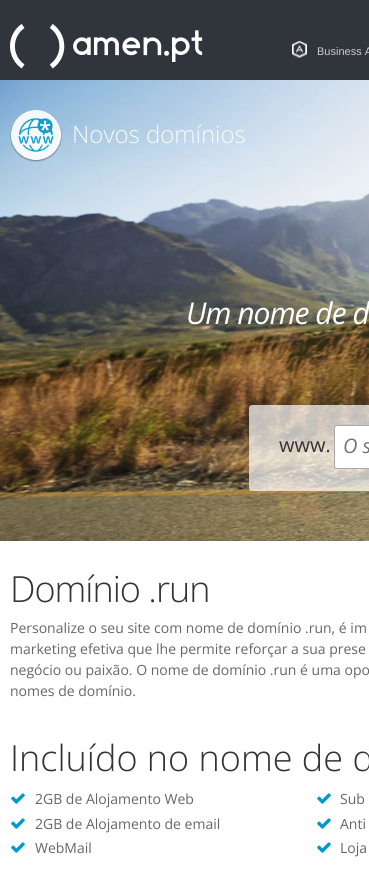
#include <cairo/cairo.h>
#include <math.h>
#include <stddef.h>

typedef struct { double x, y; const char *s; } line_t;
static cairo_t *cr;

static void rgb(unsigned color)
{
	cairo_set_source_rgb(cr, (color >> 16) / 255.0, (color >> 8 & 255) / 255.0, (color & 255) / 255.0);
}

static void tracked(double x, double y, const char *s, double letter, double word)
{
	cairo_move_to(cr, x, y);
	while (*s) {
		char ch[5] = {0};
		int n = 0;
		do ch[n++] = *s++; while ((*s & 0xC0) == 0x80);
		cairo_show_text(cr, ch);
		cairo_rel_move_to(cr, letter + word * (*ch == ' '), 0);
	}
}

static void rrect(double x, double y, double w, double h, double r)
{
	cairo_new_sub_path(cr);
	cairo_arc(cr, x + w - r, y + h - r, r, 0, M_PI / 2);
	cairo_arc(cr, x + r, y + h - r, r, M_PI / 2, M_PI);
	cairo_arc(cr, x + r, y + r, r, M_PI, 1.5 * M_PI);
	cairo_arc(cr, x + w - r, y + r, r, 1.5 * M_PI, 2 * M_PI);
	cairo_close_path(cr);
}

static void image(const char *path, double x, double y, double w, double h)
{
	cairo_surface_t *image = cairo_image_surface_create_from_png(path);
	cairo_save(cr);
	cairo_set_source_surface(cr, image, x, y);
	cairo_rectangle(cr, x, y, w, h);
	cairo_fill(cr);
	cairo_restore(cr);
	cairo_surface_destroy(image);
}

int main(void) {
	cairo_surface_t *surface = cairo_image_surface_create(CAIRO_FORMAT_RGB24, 369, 893);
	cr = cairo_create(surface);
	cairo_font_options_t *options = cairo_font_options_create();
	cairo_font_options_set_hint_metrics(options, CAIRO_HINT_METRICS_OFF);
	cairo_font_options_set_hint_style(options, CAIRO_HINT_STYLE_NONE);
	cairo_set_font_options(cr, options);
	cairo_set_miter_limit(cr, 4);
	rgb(0xffffff);
	cairo_paint(cr);
	rgb(0x30353c);
	cairo_rectangle(cr, 0, 0, 369, 80);
	cairo_fill(cr);
	image("img/1.png", 10, 24, 193, 45);
	image("img/2.png", 292, 41, 15, 17);
	image("img/3.png", 0, 80, 369, 461);
	image("img/4.png", 10, 110, 52, 52);
	cairo_set_source_rgba(cr, 1, 1, 1, 0.7);
	rrect(249, 405, 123, 86, 3);
	cairo_fill(cr);
	rgb(0xffffff);
	cairo_new_path(cr);
	cairo_move_to(cr, 337, 425);
	cairo_line_to(cr, 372, 425);
	cairo_line_to(cr, 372, 469);
	cairo_line_to(cr, 337, 469);
	cairo_curve_to(cr, 335.5, 469, 334, 467.5, 334, 466);
	cairo_line_to(cr, 334, 428);
	cairo_curve_to(cr, 334, 426.5, 335.5, 425, 337, 425);
	cairo_close_path(cr);
	cairo_fill(cr);
	rgb(0xaaaaaa);
	cairo_set_fill_rule(cr, CAIRO_FILL_RULE_EVEN_ODD);
	cairo_new_path(cr);
	cairo_move_to(cr, 337, 425);
	cairo_line_to(cr, 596, 425);
	cairo_line_to(cr, 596, 469);
	cairo_line_to(cr, 337, 469);
	cairo_curve_to(cr, 335, 469, 334, 468, 334, 466);
	cairo_line_to(cr, 334, 428);
	cairo_curve_to(cr, 334, 426, 335, 425, 337, 425);
	cairo_close_path(cr);
	cairo_move_to(cr, 337, 426);
	cairo_line_to(cr, 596, 426);
	cairo_line_to(cr, 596, 468);
	cairo_line_to(cr, 337, 468);
	cairo_curve_to(cr, 336, 468, 335, 467, 335, 466);
	cairo_line_to(cr, 335, 428);
	cairo_curve_to(cr, 335, 427, 336, 426, 337, 426);
	cairo_close_path(cr);
	cairo_fill(cr);
	image("img/5.png", 11, 793, 14, 11);
	image("img/5.png", 317, 793, 14, 11);
	image("img/5.png", 11, 818, 14, 11);
	image("img/5.png", 317, 818, 14, 11);
	image("img/5.png", 11, 842, 14, 11);
	image("img/5.png", 317, 842, 14, 11);
	cairo_select_font_face(cr, "Liberation Sans", CAIRO_FONT_SLANT_NORMAL, CAIRO_FONT_WEIGHT_NORMAL);
	cairo_set_font_size(cr, 11);
	rgb(0xcccccc);
	cairo_move_to(cr, 317, 55);
	cairo_show_text(cr, "Business A");
	cairo_select_font_face(cr, "Open Sans Light", CAIRO_FONT_SLANT_NORMAL, CAIRO_FONT_WEIGHT_NORMAL);
	cairo_set_font_size(cr, 24);
	rgb(0xf8fbfd);
	cairo_move_to(cr, 72, 143);
	cairo_show_text(cr, "Novos domínios");
	cairo_select_font_face(cr, "Open Sans", CAIRO_FONT_SLANT_ITALIC, CAIRO_FONT_WEIGHT_NORMAL);
	cairo_set_font_size(cr, 30);
	rgb(0xffffff);
	tracked(186, 324, "Um nome de d", -1, 0);
	cairo_select_font_face(cr, "Open Sans", CAIRO_FONT_SLANT_NORMAL, CAIRO_FONT_WEIGHT_NORMAL);
	cairo_set_font_size(cr, 20);
	rgb(0x333333);
	cairo_move_to(cr, 279, 452);
	cairo_show_text(cr, "www.");
	cairo_select_font_face(cr, "Open Sans", CAIRO_FONT_SLANT_ITALIC, CAIRO_FONT_WEIGHT_NORMAL);
	rgb(0x757575);
	cairo_move_to(cr, 343, 453);
	cairo_show_text(cr, "O s");
	cairo_select_font_face(cr, "Open Sans Light", CAIRO_FONT_SLANT_NORMAL, CAIRO_FONT_WEIGHT_NORMAL);
	cairo_set_font_size(cr, 36);
	rgb(0x333333);
	tracked(10, 602, "Domínio .run", -1, 0);
	cairo_select_font_face(cr, "Open Sans", CAIRO_FONT_SLANT_NORMAL, CAIRO_FONT_WEIGHT_NORMAL);
	cairo_set_font_size(cr, 14);
	rgb(0x666666);
	{
		static const line_t items[] = {
			{10, 633, "Personalize o seu site com nome de domínio .run, é im"},
			{10, 654, "marketing efetiva que lhe permite reforçar a sua prese"},
			{10, 675, "negócio ou paixão. O nome de domínio .run é uma opo"},
			{10, 696, "nomes de domínio."},
		};
		for (size_t i = 0; i < sizeof items / sizeof *items; i++) {
			cairo_move_to(cr, items[i].x, items[i].y);
			cairo_show_text(cr, items[i].s);
		}
	}
	cairo_select_font_face(cr, "Open Sans Light", CAIRO_FONT_SLANT_NORMAL, CAIRO_FONT_WEIGHT_NORMAL);
	cairo_set_font_size(cr, 36);
	rgb(0x333333);
	cairo_move_to(cr, 10, 771);
	cairo_show_text(cr, "Incluído no nome de d");
	cairo_select_font_face(cr, "Open Sans", CAIRO_FONT_SLANT_NORMAL, CAIRO_FONT_WEIGHT_NORMAL);
	cairo_set_font_size(cr, 14);
	rgb(0x666666);
	{
		static const line_t items[] = {
			{35, 804, "2GB de Alojamento Web"},
			{340, 804, "Sub"},
			{35, 829, "2GB de Alojamento de email"},
			{340, 829, "Anti"},
			{35, 853, "WebMail"},
			{340, 853, "Loja"},
		};
		for (size_t i = 0; i < sizeof items / sizeof *items; i++) {
			cairo_move_to(cr, items[i].x, items[i].y);
			cairo_show_text(cr, items[i].s);
		}
	}
	cairo_surface_write_to_png(surface, "page.png");
	cairo_font_options_destroy(options);
	cairo_destroy(cr);
	cairo_surface_destroy(surface);
	return 0;
}
